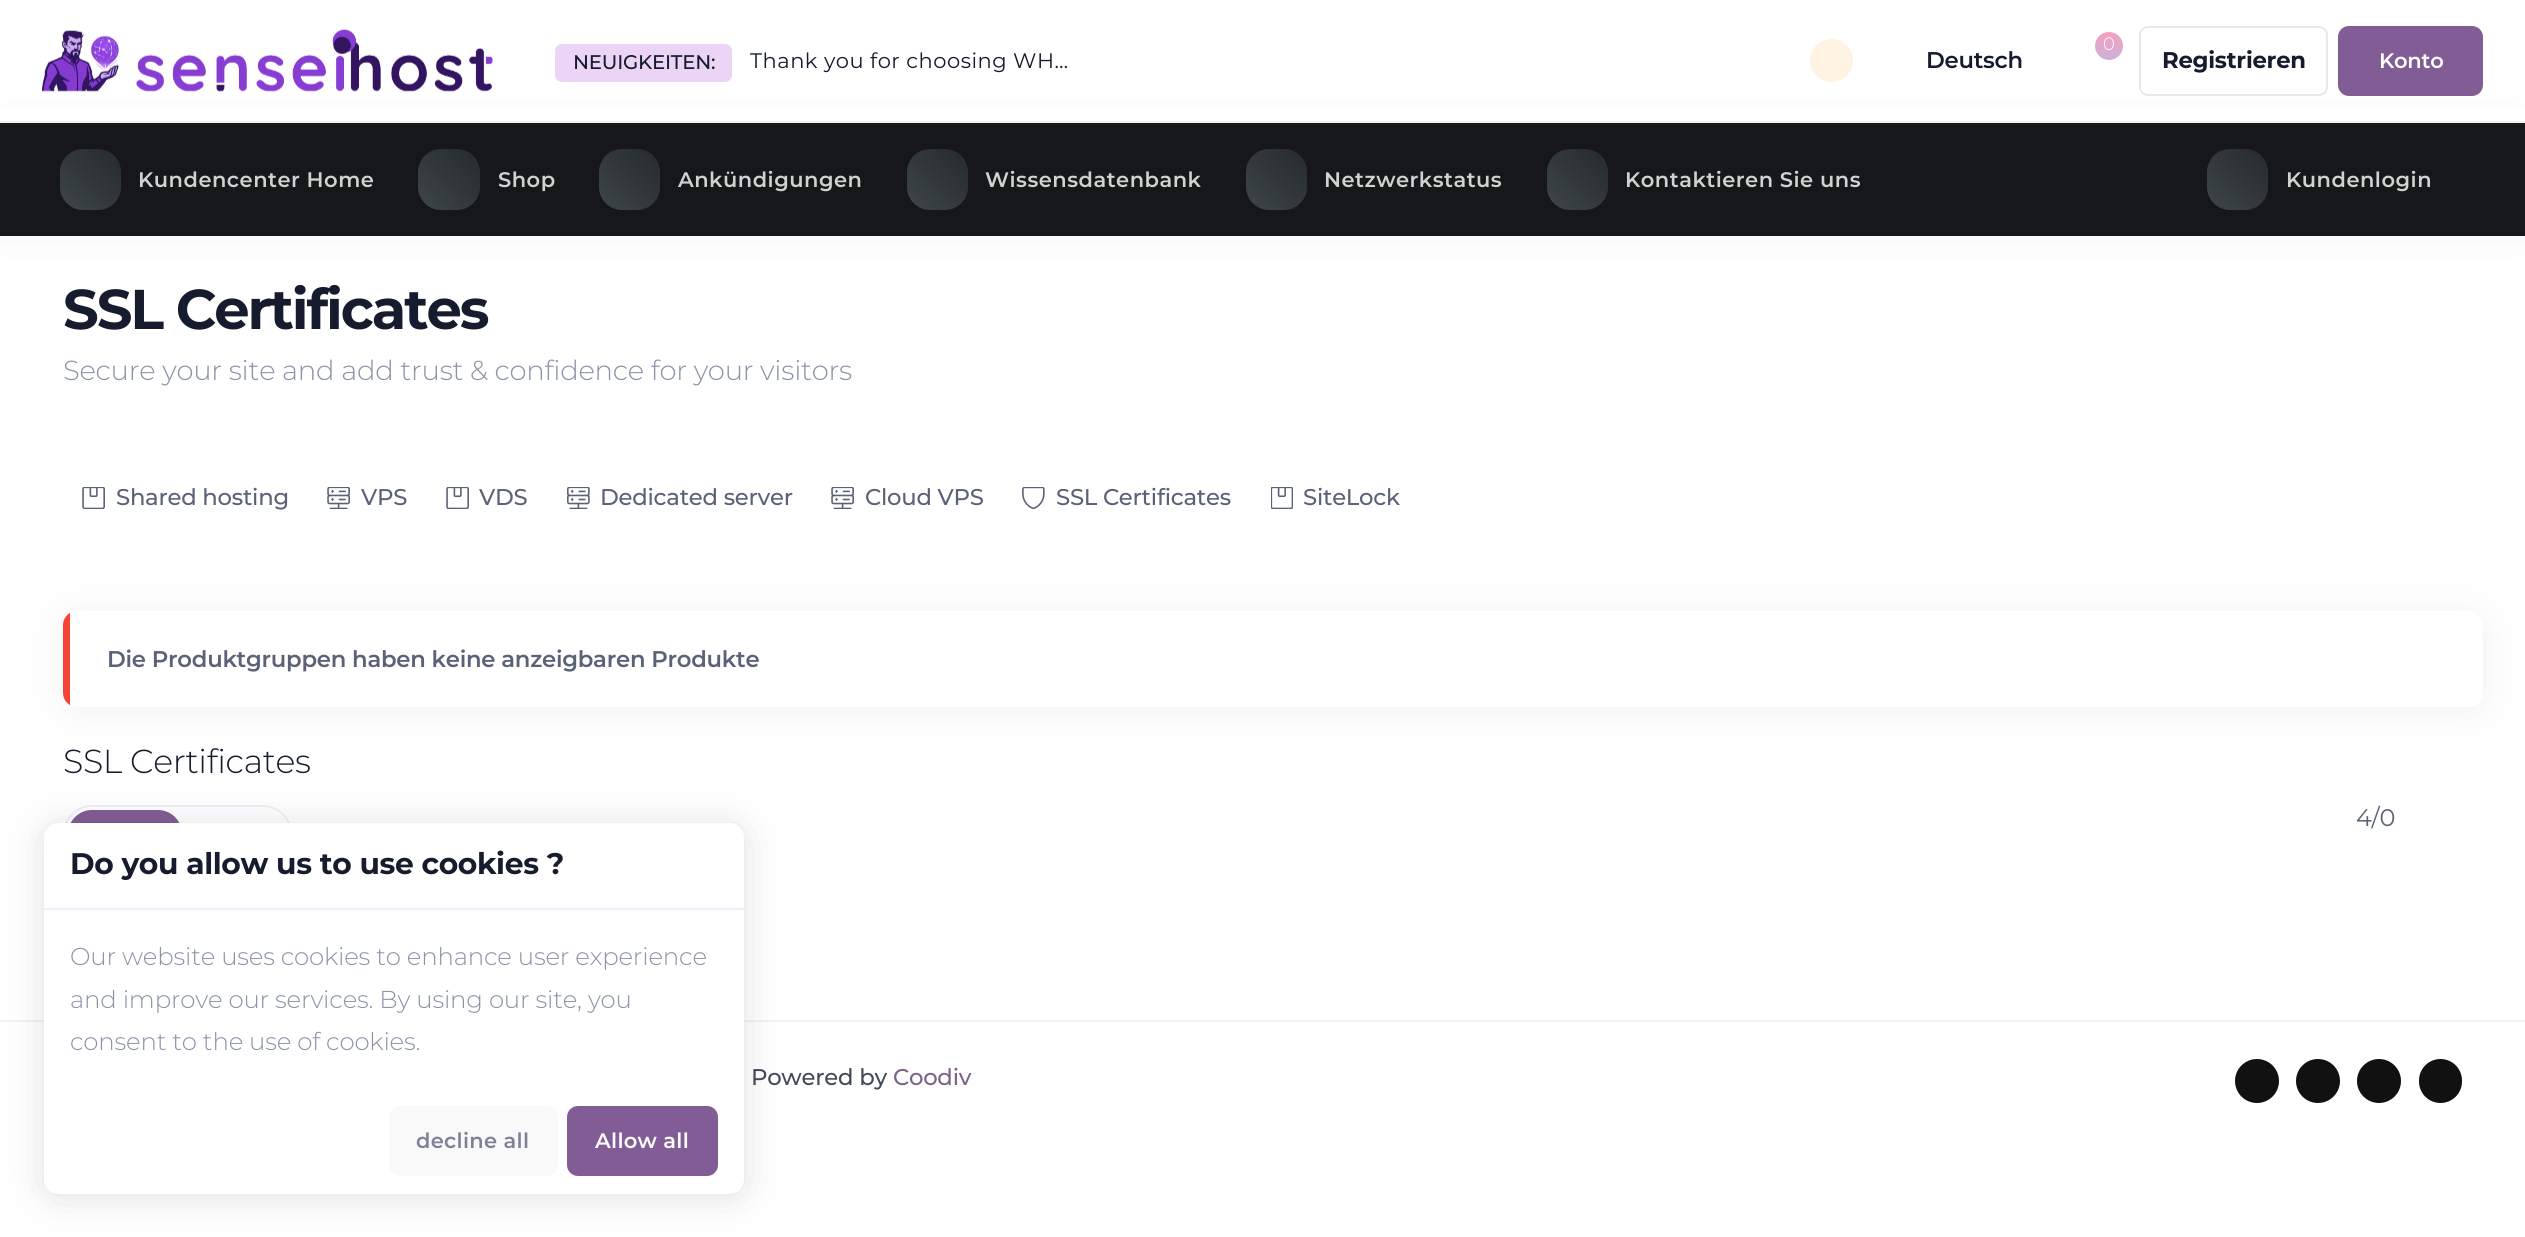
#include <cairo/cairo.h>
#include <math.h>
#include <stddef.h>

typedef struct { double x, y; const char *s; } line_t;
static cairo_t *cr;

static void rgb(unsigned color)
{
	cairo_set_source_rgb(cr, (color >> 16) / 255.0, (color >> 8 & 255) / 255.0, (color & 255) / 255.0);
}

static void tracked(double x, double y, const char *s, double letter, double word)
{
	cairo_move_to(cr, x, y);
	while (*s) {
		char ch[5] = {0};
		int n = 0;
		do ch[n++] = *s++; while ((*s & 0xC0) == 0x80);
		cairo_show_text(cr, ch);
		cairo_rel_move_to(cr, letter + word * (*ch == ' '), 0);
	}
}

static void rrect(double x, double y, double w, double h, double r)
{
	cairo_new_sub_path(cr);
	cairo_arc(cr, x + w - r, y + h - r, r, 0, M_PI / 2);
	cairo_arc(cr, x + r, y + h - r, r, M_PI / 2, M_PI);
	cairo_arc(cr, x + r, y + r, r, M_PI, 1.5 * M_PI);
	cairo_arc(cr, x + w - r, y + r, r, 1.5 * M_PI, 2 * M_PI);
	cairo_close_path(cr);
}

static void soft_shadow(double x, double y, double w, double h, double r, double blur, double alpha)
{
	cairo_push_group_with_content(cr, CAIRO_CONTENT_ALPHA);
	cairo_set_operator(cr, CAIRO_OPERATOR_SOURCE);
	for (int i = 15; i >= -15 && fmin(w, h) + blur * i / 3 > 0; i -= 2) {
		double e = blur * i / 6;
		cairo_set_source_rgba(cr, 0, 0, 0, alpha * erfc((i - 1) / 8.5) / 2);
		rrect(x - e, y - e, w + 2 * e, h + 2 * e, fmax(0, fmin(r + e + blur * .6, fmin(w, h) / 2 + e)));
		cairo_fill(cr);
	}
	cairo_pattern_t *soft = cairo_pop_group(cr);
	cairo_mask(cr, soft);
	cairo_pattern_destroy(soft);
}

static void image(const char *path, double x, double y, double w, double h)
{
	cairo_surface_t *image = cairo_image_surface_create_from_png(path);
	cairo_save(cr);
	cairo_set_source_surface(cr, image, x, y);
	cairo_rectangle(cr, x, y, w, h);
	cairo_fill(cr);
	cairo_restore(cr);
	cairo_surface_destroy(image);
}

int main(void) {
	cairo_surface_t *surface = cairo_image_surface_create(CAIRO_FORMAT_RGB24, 2525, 1237);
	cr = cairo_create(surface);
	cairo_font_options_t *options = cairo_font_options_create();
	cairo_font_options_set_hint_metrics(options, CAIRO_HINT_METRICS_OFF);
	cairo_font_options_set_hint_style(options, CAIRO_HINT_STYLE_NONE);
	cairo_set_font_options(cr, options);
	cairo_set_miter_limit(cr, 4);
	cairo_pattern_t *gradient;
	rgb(0xffffff);
	cairo_paint(cr);
	rgb(0x0f306a);
	soft_shadow(0, 123, 2525, 113, 0, 17.5, 0.06);
	rgb(0xffffff);
	cairo_rectangle(cr, 0, 107, 2525, 14);
	cairo_fill(cr);
	rgb(0xf3f3f3);
	cairo_rectangle(cr, 0, 121, 2525, 2);
	cairo_fill(cr);
	image("img/1.png", 42, 30, 77, 62);
	image("img/2.png", 136, 29, 357, 63);
	rgb(0xebd4f6);
	rrect(555, 44, 177, 38, 7);
	cairo_fill(cr);
	rgb(0xfff3e2);
	cairo_arc(cr, 1831.5, 60.5, 21.5, 0, 2 * M_PI);
	cairo_fill(cr);
	gradient = cairo_pattern_create_linear(2109, 60, 2109, 32);
	cairo_pattern_add_color_stop_rgba(gradient, 0, 0.796, 0.698, 0.847, 1);
	cairo_pattern_add_color_stop_rgba(gradient, 1, 0.965, 0.624, 0.741, 1);
	cairo_set_source(cr, gradient);
	cairo_pattern_destroy(gradient);
	cairo_arc(cr, 2109, 46, 14, 0, 2 * M_PI);
	cairo_fill(cr);
	rrect(2140, 27, 187, 68, 8);
	rgb(0xe7e9ed);
	cairo_stroke(cr);
	rgb(0x825d95);
	rrect(2338, 26, 145, 70, 11);
	cairo_fill(cr);
	rgb(0x151718);
	cairo_rectangle(cr, 0, 123, 2525, 113);
	cairo_fill(cr);
	gradient = cairo_pattern_create_linear(60, 210, 121, 149);
	cairo_pattern_add_color_stop_rgba(gradient, 0, 0.243, 0.275, 0.278, 1);
	cairo_pattern_add_color_stop_rgba(gradient, 1, 0.149, 0.165, 0.169, 1);
	cairo_set_source(cr, gradient);
	cairo_pattern_destroy(gradient);
	rrect(60, 149, 61, 61, 23);
	cairo_fill(cr);
	gradient = cairo_pattern_create_linear(418, 210, 480, 149);
	cairo_pattern_add_color_stop_rgba(gradient, 0, 0.243, 0.275, 0.278, 1);
	cairo_pattern_add_color_stop_rgba(gradient, 1, 0.149, 0.165, 0.169, 1);
	cairo_set_source(cr, gradient);
	cairo_pattern_destroy(gradient);
	rrect(418, 149, 62, 61, 23);
	cairo_fill(cr);
	gradient = cairo_pattern_create_linear(599, 210, 660, 149);
	cairo_pattern_add_color_stop_rgba(gradient, 0, 0.243, 0.275, 0.278, 1);
	cairo_pattern_add_color_stop_rgba(gradient, 1, 0.149, 0.165, 0.169, 1);
	cairo_set_source(cr, gradient);
	cairo_pattern_destroy(gradient);
	rrect(599, 149, 61, 61, 23);
	cairo_fill(cr);
	gradient = cairo_pattern_create_linear(907, 210, 968, 149);
	cairo_pattern_add_color_stop_rgba(gradient, 0, 0.243, 0.275, 0.278, 1);
	cairo_pattern_add_color_stop_rgba(gradient, 1, 0.149, 0.165, 0.169, 1);
	cairo_set_source(cr, gradient);
	cairo_pattern_destroy(gradient);
	rrect(907, 149, 61, 61, 23);
	cairo_fill(cr);
	gradient = cairo_pattern_create_linear(1246, 210, 1307, 149);
	cairo_pattern_add_color_stop_rgba(gradient, 0, 0.243, 0.275, 0.278, 1);
	cairo_pattern_add_color_stop_rgba(gradient, 1, 0.149, 0.165, 0.169, 1);
	cairo_set_source(cr, gradient);
	cairo_pattern_destroy(gradient);
	rrect(1246, 149, 61, 61, 23);
	cairo_fill(cr);
	gradient = cairo_pattern_create_linear(1547, 210, 1608, 149);
	cairo_pattern_add_color_stop_rgba(gradient, 0, 0.243, 0.275, 0.278, 1);
	cairo_pattern_add_color_stop_rgba(gradient, 1, 0.149, 0.165, 0.169, 1);
	cairo_set_source(cr, gradient);
	cairo_pattern_destroy(gradient);
	rrect(1547, 149, 61, 61, 23);
	cairo_fill(cr);
	gradient = cairo_pattern_create_linear(2207, 210, 2268, 149);
	cairo_pattern_add_color_stop_rgba(gradient, 0, 0.243, 0.275, 0.278, 1);
	cairo_pattern_add_color_stop_rgba(gradient, 1, 0.149, 0.165, 0.169, 1);
	cairo_set_source(cr, gradient);
	cairo_pattern_destroy(gradient);
	rrect(2207, 149, 61, 61, 23);
	cairo_fill(cr);
	image("img/3.png", 82, 487, 23, 22);
	image("img/4.png", 327, 487, 23, 22);
	image("img/3.png", 446, 487, 23, 22);
	image("img/5.png", 567, 487, 23, 22);
	image("img/4.png", 831, 487, 23, 22);
	image("img/6.png", 1022, 487, 23, 22);
	image("img/7.png", 1271, 487, 22, 22);
	rgb(0x000000);
	soft_shadow(63, 614, 2420, 97, 14, 21, 0.06);
	rgb(0xffffff);
	rrect(63, 611, 2420, 96, 14);
	cairo_fill(cr);
	cairo_save(cr);
	rrect(63, 611, 2420, 96, 14);
	cairo_clip(cr);
	rgb(0xf44336);
	cairo_rectangle(cr, 63, 611, 7, 96);
	cairo_fill(cr);
	cairo_restore(cr);
	rrect(64, 806, 227, 56, 28);
	rgb(0xeceff9);
	cairo_stroke(cr);
	rgb(0x825d95);
	rrect(68, 810, 114, 48, 24);
	cairo_fill(cr);
	rgb(0xeff4f6);
	cairo_rectangle(cr, 0, 1020, 2525, 2);
	cairo_fill(cr);
	rgb(0x111112);
	cairo_arc(cr, 2257, 1081, 22, 0, 2 * M_PI);
	cairo_fill(cr);
	cairo_arc(cr, 2318, 1081, 22, 0, 2 * M_PI);
	cairo_fill(cr);
	cairo_arc(cr, 2379, 1081, 22, 0, 2 * M_PI);
	cairo_fill(cr);
	rrect(2419, 1059, 43, 44, 21.5);
	cairo_fill(cr);
	rgb(0x000000);
	soft_shadow(44, 826, 700, 371, 14, 21, 0.12);
	soft_shadow(44, 823, 700, 371, 14, 1, 0.05);
	rgb(0xffffff);
	rrect(44, 823, 700, 371, 14);
	cairo_fill(cr);
	rgb(0xeceff9);
	cairo_rectangle(cr, 44, 908, 700, 2);
	cairo_fill(cr);
	rgb(0xf9f9f9);
	rrect(389, 1106, 169, 70, 11);
	cairo_fill(cr);
	rgb(0x825d95);
	rrect(568, 1107, 149, 68, 10);
	cairo_fill_preserve(cr);
	cairo_stroke(cr);
	cairo_select_font_face(cr, "Montserrat Medium", CAIRO_FONT_SLANT_NORMAL, CAIRO_FONT_WEIGHT_NORMAL);
	cairo_set_font_size(cr, 19.75);
	rgb(0x161c2d);
	tracked(573, 69, "NEUIGKEITEN:", -0.25, 0);
	cairo_select_font_face(cr, "Montserrat", CAIRO_FONT_SLANT_NORMAL, CAIRO_FONT_WEIGHT_NORMAL);
	cairo_set_font_size(cr, 21);
	tracked(750, 68, "Thank you for choosing WH…", 0.5, 0);
	cairo_select_font_face(cr, "Montserrat SemiBold", CAIRO_FONT_SLANT_NORMAL, CAIRO_FONT_WEIGHT_NORMAL);
	cairo_set_font_size(cr, 22.75);
	tracked(1926, 68, "Deutsch", -0.25, 0);
	cairo_select_font_face(cr, "Montserrat Light", CAIRO_FONT_SLANT_NORMAL, CAIRO_FONT_WEIGHT_NORMAL);
	cairo_set_font_size(cr, 18);
	rgb(0xffffff);
	tracked(2103, 50, "0", -0.25, 0);
	cairo_select_font_face(cr, "Montserrat", CAIRO_FONT_SLANT_NORMAL, CAIRO_FONT_WEIGHT_BOLD);
	cairo_set_font_size(cr, 22.75);
	rgb(0x161c2d);
	tracked(2162, 68, "Registrieren", -0.25, 0);
	cairo_select_font_face(cr, "Montserrat SemiBold", CAIRO_FONT_SLANT_NORMAL, CAIRO_FONT_WEIGHT_NORMAL);
	cairo_set_font_size(cr, 21);
	rgb(0xffffff);
	tracked(2379, 68, "Konto", -0.25, 0);
	rgb(0xd0d1d1);
	{
		static const line_t items[] = {
			{138, 187, "Kundencenter Home"},
			{498, 187, "Shop"},
			{678, 187, "Ankündigungen"},
			{985, 187, "Wissensdatenbank"},
			{1324, 187, "Netzwerkstatus"},
			{1625, 187, "Kontaktieren Sie uns"},
			{2286, 187, "Kundenlogin"},
		};
		for (size_t i = 0; i < sizeof items / sizeof *items; i++) {
			tracked(items[i].x, items[i].y, items[i].s, 0.5, 0);
		}
	}
	cairo_select_font_face(cr, "Montserrat", CAIRO_FONT_SLANT_NORMAL, CAIRO_FONT_WEIGHT_BOLD);
	cairo_set_font_size(cr, 56);
	rgb(0x161c2d);
	tracked(63, 329, "SSL Certificates", -2.1, 0);
	cairo_select_font_face(cr, "Montserrat Light", CAIRO_FONT_SLANT_NORMAL, CAIRO_FONT_WEIGHT_NORMAL);
	cairo_set_font_size(cr, 27.45);
	rgb(0x8b93a9);
	tracked(63, 380, "Secure your site and add trust & confidence for your visitors", -0.25, 0);
	cairo_select_font_face(cr, "Montserrat Medium", CAIRO_FONT_SLANT_NORMAL, CAIRO_FONT_WEIGHT_NORMAL);
	cairo_set_font_size(cr, 22.75);
	rgb(0x5b6278);
	{
		static const line_t items[] = {
			{116, 505, "Shared hosting"},
			{361, 505, "VPS"},
			{479, 505, "VDS"},
			{600, 505, "Dedicated server"},
			{865, 505, "Cloud VPS"},
			{1056, 505, "SSL Certificates"},
			{1303, 505, "SiteLock"},
		};
		for (size_t i = 0; i < sizeof items / sizeof *items; i++) {
			tracked(items[i].x, items[i].y, items[i].s, -0.25, 0);
		}
	}
	cairo_select_font_face(cr, "Montserrat SemiBold", CAIRO_FONT_SLANT_NORMAL, CAIRO_FONT_WEIGHT_NORMAL);
	tracked(107, 667, "Die Produktgruppen haben keine anzeigbaren Produkte", -0.25, 0);
	cairo_select_font_face(cr, "Montserrat Light", CAIRO_FONT_SLANT_NORMAL, CAIRO_FONT_WEIGHT_NORMAL);
	cairo_set_font_size(cr, 33.25);
	rgb(0x161c2d);
	tracked(63, 773, "SSL Certificates", -0.35, 0);
	cairo_select_font_face(cr, "Montserrat", CAIRO_FONT_SLANT_NORMAL, CAIRO_FONT_WEIGHT_NORMAL);
	cairo_set_font_size(cr, 24);
	rgb(0x5b6278);
	tracked(2356, 826, "4/0", -0.25, 0);
	cairo_select_font_face(cr, "Montserrat Medium", CAIRO_FONT_SLANT_NORMAL, CAIRO_FONT_WEIGHT_NORMAL);
	cairo_set_font_size(cr, 22.75);
	rgb(0x454957);
	tracked(751, 1085, "Powered by", -0.25, 0);
	rgb(0x7d618b);
	tracked(893, 1085, "Coodiv", -0.25, 0);
	cairo_select_font_face(cr, "Montserrat", CAIRO_FONT_SLANT_NORMAL, CAIRO_FONT_WEIGHT_BOLD);
	cairo_set_font_size(cr, 29.75);
	rgb(0x161c2d);
	tracked(70, 874, "Do you allow us to use cookies ?", -0.35, 0);
	cairo_select_font_face(cr, "Montserrat Light", CAIRO_FONT_SLANT_NORMAL, CAIRO_FONT_WEIGHT_NORMAL);
	cairo_set_font_size(cr, 24.4);
	rgb(0x8b93a9);
	{
		static const line_t items[] = {
			{70, 965, "Our website uses cookies to enhance user experience"},
			{70, 1008, "and improve our services. By using our site, you"},
			{70, 1050, "consent to the use of cookies."},
		};
		for (size_t i = 0; i < sizeof items / sizeof *items; i++) {
			tracked(items[i].x, items[i].y, items[i].s, -0.18, 0);
		}
	}
	cairo_select_font_face(cr, "Montserrat SemiBold", CAIRO_FONT_SLANT_NORMAL, CAIRO_FONT_WEIGHT_NORMAL);
	cairo_set_font_size(cr, 21);
	rgb(0x7e8299);
	tracked(416, 1148, "decline all", 0.3, 0);
	rgb(0xffffff);
	tracked(595, 1148, "Allow all", 0.3, 0);
	cairo_surface_write_to_png(surface, "page.png");
	cairo_font_options_destroy(options);
	cairo_destroy(cr);
	cairo_surface_destroy(surface);
	return 0;
}
